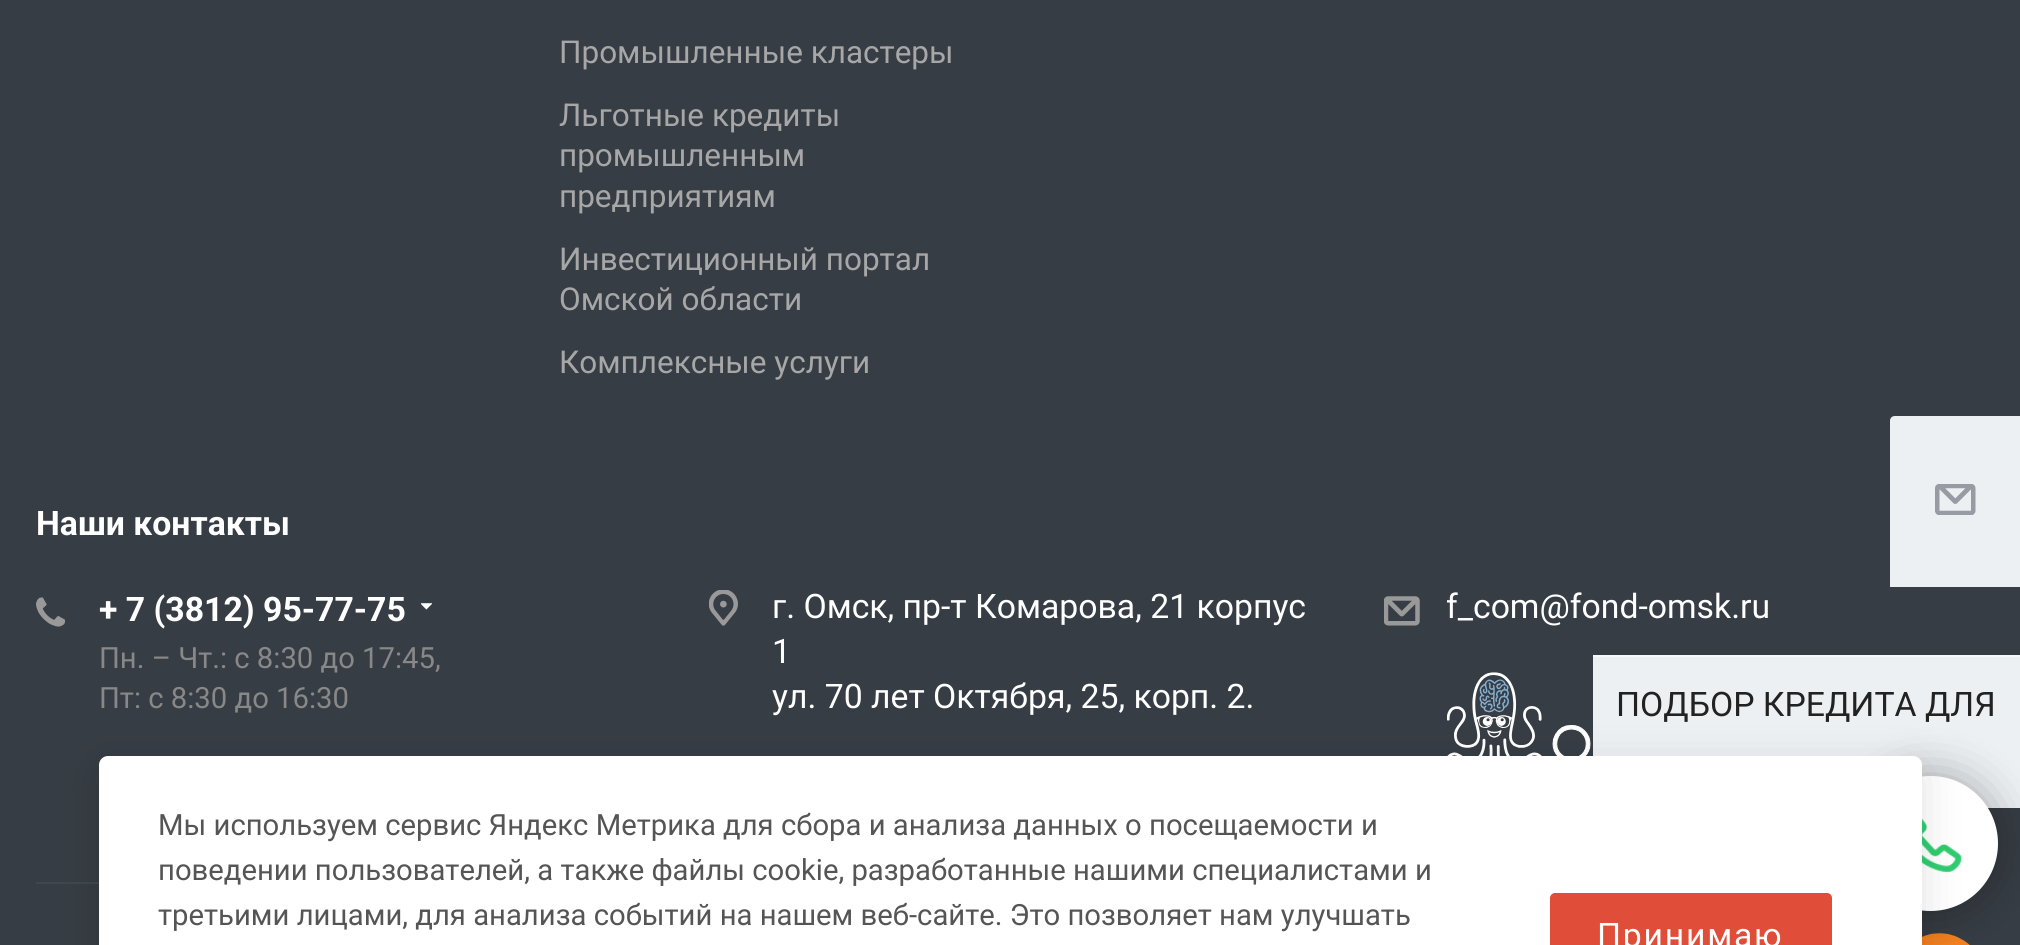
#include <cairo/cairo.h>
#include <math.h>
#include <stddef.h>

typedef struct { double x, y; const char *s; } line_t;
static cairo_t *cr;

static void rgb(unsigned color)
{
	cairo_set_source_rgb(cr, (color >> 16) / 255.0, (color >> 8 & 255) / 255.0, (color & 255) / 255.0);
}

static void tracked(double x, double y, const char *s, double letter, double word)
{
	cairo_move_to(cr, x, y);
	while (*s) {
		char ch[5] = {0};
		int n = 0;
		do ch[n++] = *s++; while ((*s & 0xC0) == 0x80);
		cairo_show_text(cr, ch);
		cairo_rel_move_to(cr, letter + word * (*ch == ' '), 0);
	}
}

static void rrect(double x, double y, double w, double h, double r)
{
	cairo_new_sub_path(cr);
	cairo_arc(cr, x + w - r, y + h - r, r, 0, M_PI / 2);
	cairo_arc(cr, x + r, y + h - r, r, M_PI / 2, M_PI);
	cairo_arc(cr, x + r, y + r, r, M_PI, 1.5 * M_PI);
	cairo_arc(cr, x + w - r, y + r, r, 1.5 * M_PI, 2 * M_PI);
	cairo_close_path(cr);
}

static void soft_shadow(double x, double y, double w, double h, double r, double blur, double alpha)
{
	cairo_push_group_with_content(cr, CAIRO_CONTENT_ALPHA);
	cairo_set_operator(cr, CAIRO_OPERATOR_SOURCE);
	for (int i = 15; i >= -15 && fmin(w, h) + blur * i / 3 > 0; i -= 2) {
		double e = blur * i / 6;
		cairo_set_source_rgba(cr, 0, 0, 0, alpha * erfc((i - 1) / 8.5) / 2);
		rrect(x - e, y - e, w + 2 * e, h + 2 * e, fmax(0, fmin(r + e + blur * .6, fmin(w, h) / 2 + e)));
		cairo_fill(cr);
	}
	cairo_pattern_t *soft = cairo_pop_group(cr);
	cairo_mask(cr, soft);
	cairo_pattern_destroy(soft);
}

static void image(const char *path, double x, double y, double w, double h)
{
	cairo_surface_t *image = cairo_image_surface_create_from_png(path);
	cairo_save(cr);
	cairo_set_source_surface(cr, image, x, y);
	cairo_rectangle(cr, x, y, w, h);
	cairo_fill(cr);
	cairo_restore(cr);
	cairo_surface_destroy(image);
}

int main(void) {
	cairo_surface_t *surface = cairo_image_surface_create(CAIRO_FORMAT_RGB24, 2020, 945);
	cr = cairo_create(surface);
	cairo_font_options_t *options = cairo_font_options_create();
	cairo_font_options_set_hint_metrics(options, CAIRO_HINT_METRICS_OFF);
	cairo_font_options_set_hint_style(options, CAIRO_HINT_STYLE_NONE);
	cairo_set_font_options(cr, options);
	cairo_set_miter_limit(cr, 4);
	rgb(0x373d44);
	cairo_paint(cr);
	image("img/1.png", 36, 597, 29, 30);
	image("img/2.png", 421, 603, 11, 7);
	image("img/3.png", 709, 590, 29, 36);
	image("img/4.png", 1384, 596, 36, 30);
	image("img/5.png", 1447, 672, 144, 84);
	rgb(0x41474e);
	cairo_rectangle(cr, 36, 882, 1949, 2);
	cairo_fill(cr);
	image("img/6.png", 1922, 933, 48, 12);
	rgb(0xedf0f3);
	cairo_new_path(cr);
	cairo_move_to(cr, 1895, 416);
	cairo_line_to(cr, 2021, 416);
	cairo_line_to(cr, 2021, 587);
	cairo_line_to(cr, 1890, 587);
	cairo_line_to(cr, 1890, 421);
	cairo_curve_to(cr, 1890, 418, 1892, 416, 1895, 416);
	cairo_close_path(cr);
	cairo_fill(cr);
	image("img/7.png", 1935, 484, 41, 31);
	cairo_rectangle(cr, 1593, 657, 427, 151);
	cairo_fill(cr);
	rgb(0xf6f8f9);
	cairo_rectangle(cr, 1593, 655, 427, 2);
	cairo_fill(cr);
	rgb(0x000000);
	soft_shadow(1863, 776, 135, 135, 67.5, 22.5, 0.3);
	rgb(0xffffff);
	cairo_arc(cr, 1930.5, 843.5, 67.5, 0, 2 * M_PI);
	cairo_fill(cr);
	image("img/8.png", 1922, 818, 41, 56);
	rgb(0x000000);
	soft_shadow(99, 767, 1823, 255, 9, 22.5, 0.12);
	rgb(0xffffff);
	rrect(99, 756, 1823, 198, 9);
	cairo_fill(cr);
	rgb(0xe04e39);
	rrect(1551, 894, 280, 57, 4);
	cairo_fill_preserve(cr);
	cairo_stroke(cr);
	cairo_select_font_face(cr, "Roboto", CAIRO_FONT_SLANT_NORMAL, CAIRO_FONT_WEIGHT_NORMAL);
	cairo_set_font_size(cr, 31.5);
	rgb(0xa7a7a7);
	{
		static const line_t items[] = {
			{559, 63, "Промышленные кластеры"},
			{559, 126, "Льготные кредиты"},
			{559, 166, "промышленным"},
			{559, 207, "предприятиям"},
			{559, 270, "Инвестиционный портал"},
			{559, 310, "Омской области"},
			{559, 373, "Комплексные услуги"},
		};
		for (size_t i = 0; i < sizeof items / sizeof *items; i++) {
			cairo_move_to(cr, items[i].x, items[i].y);
			cairo_show_text(cr, items[i].s);
		}
	}
	cairo_select_font_face(cr, "Roboto", CAIRO_FONT_SLANT_NORMAL, CAIRO_FONT_WEIGHT_BOLD);
	cairo_set_font_size(cr, 33.75);
	rgb(0xffffff);
	cairo_move_to(cr, 36, 535);
	cairo_show_text(cr, "Наши контакты");
	cairo_move_to(cr, 99, 621);
	cairo_show_text(cr, "+ 7 (3812) 95-77-75");
	cairo_select_font_face(cr, "Roboto", CAIRO_FONT_SLANT_NORMAL, CAIRO_FONT_WEIGHT_NORMAL);
	cairo_set_font_size(cr, 29.25);
	rgb(0x888888);
	cairo_move_to(cr, 99, 668);
	cairo_show_text(cr, "Пн. – Чт.: с 8:30 до 17:45,");
	cairo_move_to(cr, 99, 708);
	cairo_show_text(cr, "Пт: с 8:30 до 16:30");
	cairo_set_font_size(cr, 33.75);
	rgb(0xffffff);
	{
		static const line_t items[] = {
			{772, 618, "г. Омск, пр-т Комарова, 21 корпус"},
			{772, 663, "1"},
			{772, 708, "ул. 70 лет Октября, 25, корп. 2."},
			{1446, 618, "f_com@fond-omsk.ru"},
		};
		for (size_t i = 0; i < sizeof items / sizeof *items; i++) {
			cairo_move_to(cr, items[i].x, items[i].y);
			cairo_show_text(cr, items[i].s);
		}
	}
	rgb(0x222222);
	cairo_move_to(cr, 1616, 716);
	cairo_show_text(cr, "ПОДБОР КРЕДИТА ДЛЯ");
	cairo_set_font_size(cr, 29.25);
	rgb(0x555555);
	{
		static const line_t items[] = {
			{158, 835, "Мы используем сервис Яндекс Метрика для сбора и анализа данных о посещаемости и"},
			{158, 880, "поведении пользователей, а также файлы cookie, разработанные нашими специалистами и"},
			{158, 925, "третьими лицами, для анализа событий на нашем веб-сайте. Это позволяет нам улучшать"},
		};
		for (size_t i = 0; i < sizeof items / sizeof *items; i++) {
			cairo_move_to(cr, items[i].x, items[i].y);
			cairo_show_text(cr, items[i].s);
		}
	}
	cairo_set_font_size(cr, 33.75);
	rgb(0xffffff);
	tracked(1597, 947, "Принимаю", 1.75, 0);
	cairo_surface_write_to_png(surface, "page.png");
	cairo_font_options_destroy(options);
	cairo_destroy(cr);
	cairo_surface_destroy(surface);
	return 0;
}
